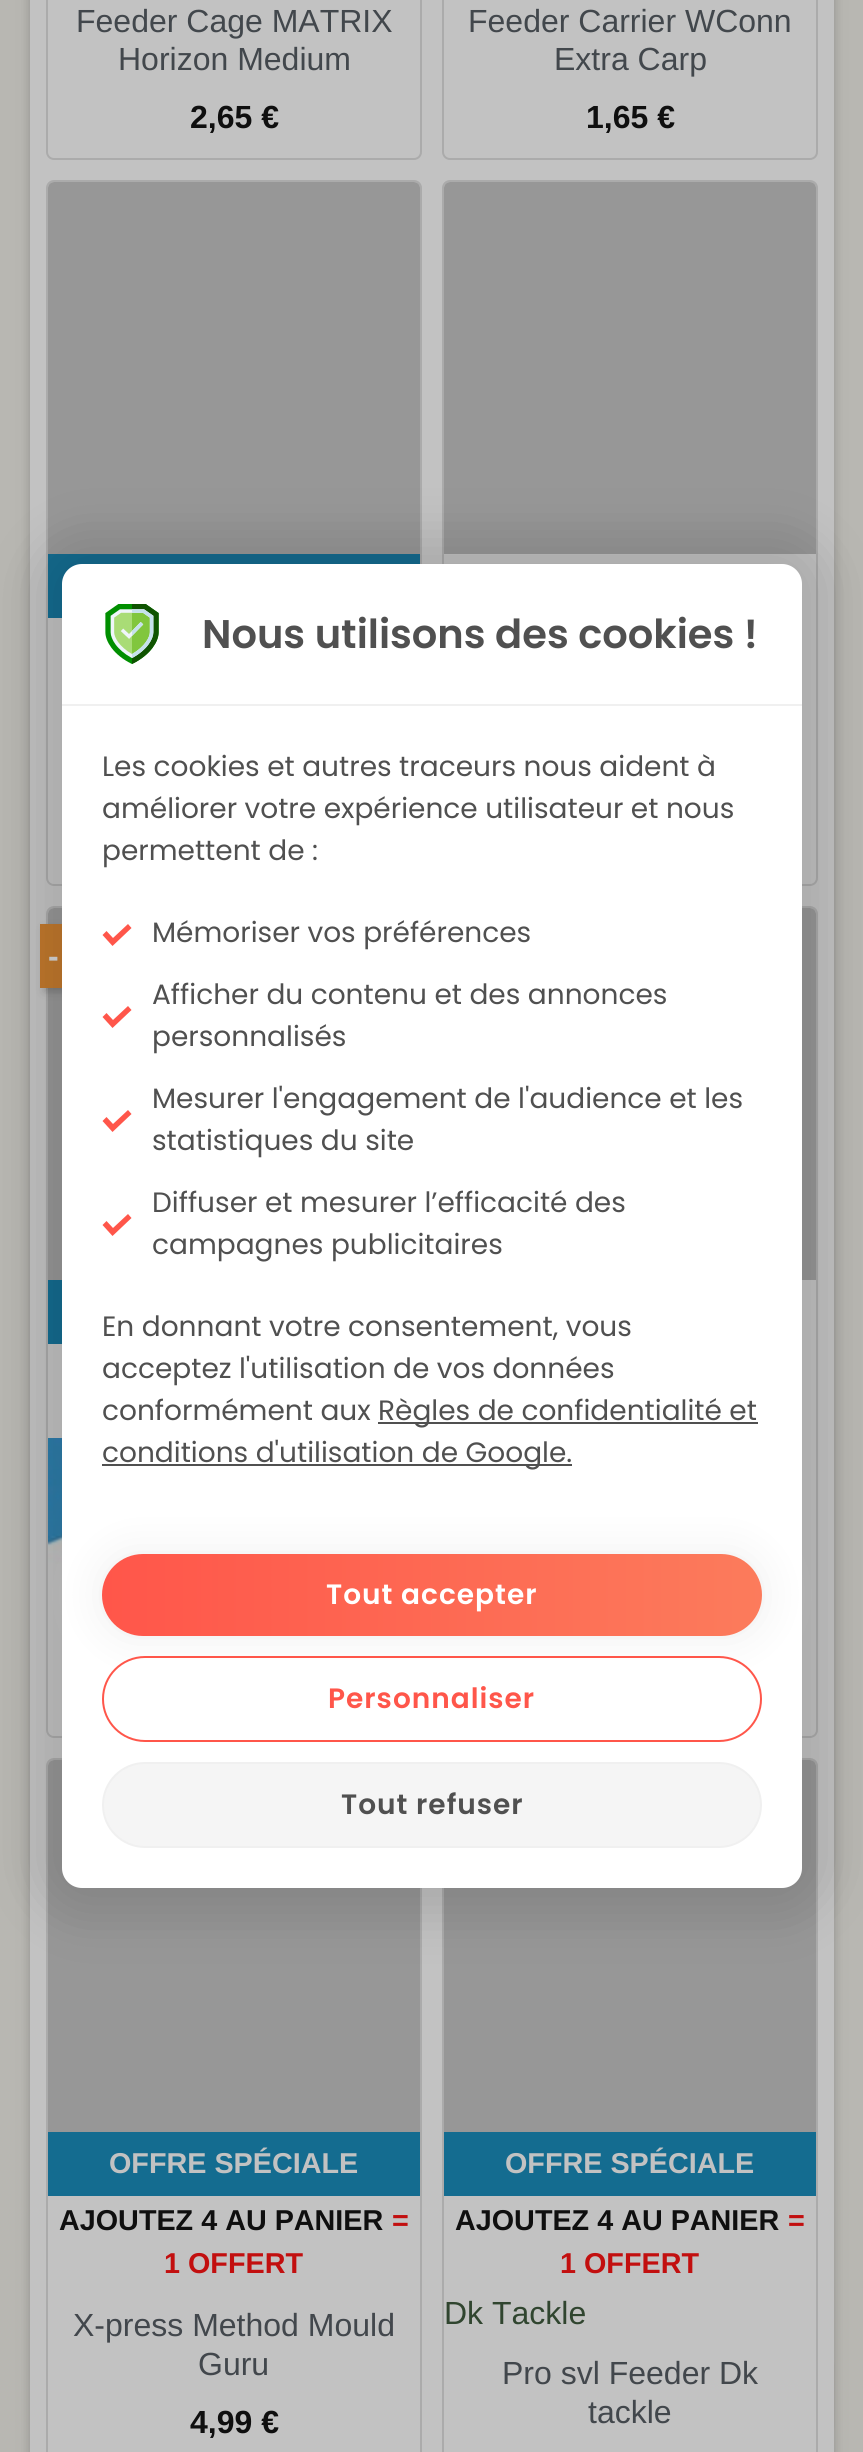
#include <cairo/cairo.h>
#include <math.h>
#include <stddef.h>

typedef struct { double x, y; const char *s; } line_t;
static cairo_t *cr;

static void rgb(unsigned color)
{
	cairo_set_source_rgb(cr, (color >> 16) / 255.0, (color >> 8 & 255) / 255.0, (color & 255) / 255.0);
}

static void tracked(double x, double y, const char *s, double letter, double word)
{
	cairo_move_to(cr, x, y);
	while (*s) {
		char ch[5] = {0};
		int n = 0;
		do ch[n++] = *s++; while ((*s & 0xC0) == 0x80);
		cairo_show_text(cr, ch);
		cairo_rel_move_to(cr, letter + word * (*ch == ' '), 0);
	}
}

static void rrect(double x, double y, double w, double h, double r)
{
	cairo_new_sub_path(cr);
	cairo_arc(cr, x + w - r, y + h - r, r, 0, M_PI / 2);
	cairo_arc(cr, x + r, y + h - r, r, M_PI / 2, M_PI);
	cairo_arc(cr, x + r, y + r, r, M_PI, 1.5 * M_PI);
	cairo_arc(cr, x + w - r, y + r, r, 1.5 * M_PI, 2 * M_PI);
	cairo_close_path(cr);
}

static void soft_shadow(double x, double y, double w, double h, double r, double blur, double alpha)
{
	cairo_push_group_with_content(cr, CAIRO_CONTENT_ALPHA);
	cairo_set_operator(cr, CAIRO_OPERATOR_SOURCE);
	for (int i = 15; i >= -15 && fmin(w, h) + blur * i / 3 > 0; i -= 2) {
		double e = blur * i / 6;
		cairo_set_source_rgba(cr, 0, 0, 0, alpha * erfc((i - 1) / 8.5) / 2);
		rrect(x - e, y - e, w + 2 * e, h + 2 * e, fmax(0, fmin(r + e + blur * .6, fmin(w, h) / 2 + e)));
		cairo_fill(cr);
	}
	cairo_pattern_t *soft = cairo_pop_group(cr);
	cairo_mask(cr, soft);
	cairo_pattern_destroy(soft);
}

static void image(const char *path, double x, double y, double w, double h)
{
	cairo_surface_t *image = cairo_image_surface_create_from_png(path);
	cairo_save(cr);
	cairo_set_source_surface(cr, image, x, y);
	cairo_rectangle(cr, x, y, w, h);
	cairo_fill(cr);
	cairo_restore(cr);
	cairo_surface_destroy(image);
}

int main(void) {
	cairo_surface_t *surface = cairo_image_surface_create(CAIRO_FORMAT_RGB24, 863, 2452);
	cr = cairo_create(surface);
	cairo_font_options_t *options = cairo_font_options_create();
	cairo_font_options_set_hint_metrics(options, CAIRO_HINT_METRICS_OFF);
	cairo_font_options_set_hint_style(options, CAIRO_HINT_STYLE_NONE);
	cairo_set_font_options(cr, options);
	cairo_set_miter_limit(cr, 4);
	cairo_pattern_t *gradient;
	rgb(0xb8b7b2);
	cairo_paint(cr);
	rgb(0x0f0f0f);
	soft_shadow(30, -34, 804, 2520, 10, 8, 0.12);
	soft_shadow(30, -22, 804, 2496, 10, 4, 0.14);
	soft_shadow(734, 2358, 100, 76, 8, 1, 0.07);
	rgb(0xc2c2c2);
	cairo_rectangle(cr, 30, 0, 804, 2452);
	cairo_fill(cr);
	rrect(47, -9, 374, 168, 7);
	rgb(0xababab);
	cairo_stroke(cr);
	rrect(443, -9, 374, 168, 7);
	cairo_stroke(cr);
	rrect(47, 181, 374, 704, 7);
	cairo_stroke(cr);
	image("img/1.png", 48, 182, 372, 372);
	rgb(0x146c90);
	cairo_rectangle(cr, 48, 554, 372, 64);
	cairo_fill(cr);
	rrect(443, 181, 374, 704, 7);
	rgb(0xababab);
	cairo_stroke(cr);
	image("img/1.png", 444, 182, 372, 372);
	rrect(47, 907, 374, 830, 7);
	cairo_stroke(cr);
	image("img/2.png", 48, 908, 14, 372);
	rgb(0x0f0f0f);
	soft_shadow(44, 928, 90, 64, 0, 4, 0.2);
	rgb(0xc1782c);
	cairo_rectangle(cr, 40, 924, 22, 64);
	cairo_fill(cr);
	rgb(0x146c90);
	cairo_rectangle(cr, 48, 1280, 14, 64);
	cairo_fill(cr);
	image("img/3.png", 48, 1438, 14, 126);
	rrect(443, 907, 374, 830, 7);
	rgb(0xababab);
	cairo_stroke(cr);
	image("img/4.png", 802, 908, 14, 372);
	rrect(47, 1759, 374, 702, 7);
	cairo_stroke(cr);
	image("img/1.png", 48, 1760, 372, 372);
	rgb(0x146c90);
	cairo_rectangle(cr, 48, 2132, 372, 64);
	cairo_fill(cr);
	rrect(443, 1759, 374, 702, 7);
	rgb(0xababab);
	cairo_stroke(cr);
	image("img/1.png", 444, 1760, 372, 372);
	rgb(0x146c90);
	cairo_rectangle(cr, 444, 2132, 372, 64);
	cairo_fill(cr);
	rgb(0x000000);
	soft_shadow(32, 534, 800, 1384, 50, 25, 0.12);
	rgb(0xffffff);
	rrect(62, 564, 740, 1324, 20);
	cairo_fill(cr);
	rgb(0xf0f0f0);
	cairo_rectangle(cr, 62, 704, 740, 2);
	cairo_fill(cr);
	image("img/5.png", 105, 604, 54, 60);
	rgb(0xff564a);
	cairo_new_path(cr);
	cairo_move_to(cr, 128, 924);
	cairo_line_to(cr, 113, 938);
	cairo_line_to(cr, 106.5, 931);
	cairo_line_to(cr, 102.5, 935);
	cairo_line_to(cr, 112.5, 946);
	cairo_line_to(cr, 131.5, 928);
	cairo_close_path(cr);
	cairo_fill(cr);
	cairo_new_path(cr);
	cairo_move_to(cr, 128, 1006);
	cairo_line_to(cr, 113, 1020);
	cairo_line_to(cr, 106.5, 1013);
	cairo_line_to(cr, 102.5, 1017);
	cairo_line_to(cr, 112.5, 1028);
	cairo_line_to(cr, 131.5, 1010);
	cairo_close_path(cr);
	cairo_fill(cr);
	cairo_new_path(cr);
	cairo_move_to(cr, 128, 1110);
	cairo_line_to(cr, 113, 1124);
	cairo_line_to(cr, 106.5, 1117);
	cairo_line_to(cr, 102.5, 1121);
	cairo_line_to(cr, 112.5, 1132);
	cairo_line_to(cr, 131.5, 1114);
	cairo_close_path(cr);
	cairo_fill(cr);
	cairo_new_path(cr);
	cairo_move_to(cr, 128, 1214);
	cairo_line_to(cr, 113, 1228);
	cairo_line_to(cr, 106.5, 1221);
	cairo_line_to(cr, 102.5, 1225);
	cairo_line_to(cr, 112.5, 1236);
	cairo_line_to(cr, 131.5, 1218);
	cairo_close_path(cr);
	cairo_fill(cr);
	rgb(0x505050);
	cairo_rectangle(cr, 378, 1422, 380, 2);
	cairo_fill(cr);
	cairo_rectangle(cr, 102, 1464, 470, 2);
	cairo_fill(cr);
	rgb(0xeeeeee);
	soft_shadow(102, 1554, 660, 82, 41, 20, 1);
	gradient = cairo_pattern_create_linear(102, 1595, 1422, 1595);
	cairo_pattern_add_color_stop_rgba(gradient, 0, 1, 0.337, 0.29, 1);
	cairo_pattern_add_color_stop_rgba(gradient, 0.51, 0.988, 0.486, 0.361, 1);
	cairo_pattern_add_color_stop_rgba(gradient, 1, 1, 0.337, 0.29, 1);
	cairo_set_source(cr, gradient);
	cairo_pattern_destroy(gradient);
	rrect(102, 1554, 660, 82, 41);
	cairo_fill(cr);
	rgb(0xffffff);
	rrect(103, 1657, 658, 84, 42);
	cairo_fill_preserve(cr);
	rgb(0xff564a);
	cairo_stroke(cr);
	rgb(0xf5f5f5);
	rrect(103, 1763, 658, 84, 42);
	cairo_fill_preserve(cr);
	rgb(0xf0f0f0);
	cairo_stroke(cr);
	cairo_select_font_face(cr, "Liberation Sans", CAIRO_FONT_SLANT_NORMAL, CAIRO_FONT_WEIGHT_NORMAL);
	cairo_set_font_size(cr, 32);
	rgb(0x42474c);
	cairo_move_to(cr, 76, 32);
	cairo_show_text(cr, "Feeder Cage MATRIX");
	cairo_move_to(cr, 118, 70);
	cairo_show_text(cr, "Horizon Medium");
	cairo_select_font_face(cr, "Liberation Sans", CAIRO_FONT_SLANT_NORMAL, CAIRO_FONT_WEIGHT_BOLD);
	rgb(0x0f0f0f);
	cairo_move_to(cr, 190, 128);
	cairo_show_text(cr, "2,65 €");
	cairo_select_font_face(cr, "Liberation Sans", CAIRO_FONT_SLANT_NORMAL, CAIRO_FONT_WEIGHT_NORMAL);
	rgb(0x42474c);
	cairo_move_to(cr, 468, 32);
	cairo_show_text(cr, "Feeder Carrier WConn");
	cairo_move_to(cr, 554, 70);
	cairo_show_text(cr, "Extra Carp");
	cairo_select_font_face(cr, "Liberation Sans", CAIRO_FONT_SLANT_NORMAL, CAIRO_FONT_WEIGHT_BOLD);
	rgb(0x0f0f0f);
	cairo_move_to(cr, 586, 128);
	cairo_show_text(cr, "1,65 €");
	rgb(0xc2c2c2);
	cairo_move_to(cr, 48, 967);
	cairo_show_text(cr, "-");
	cairo_set_font_size(cr, 28.75);
	cairo_move_to(cr, 109, 2173);
	cairo_show_text(cr, "OFFRE SPÉCIALE");
	rgb(0x0f0f0f);
	cairo_move_to(cr, 59, 2230);
	cairo_show_text(cr, "AJOUTEZ 4 AU PANIER");
	rgb(0xc20f0f);
	cairo_move_to(cr, 392, 2230);
	cairo_show_text(cr, "=");
	cairo_move_to(cr, 164, 2273);
	cairo_show_text(cr, "1 OFFERT");
	cairo_select_font_face(cr, "Liberation Sans", CAIRO_FONT_SLANT_NORMAL, CAIRO_FONT_WEIGHT_NORMAL);
	cairo_set_font_size(cr, 32);
	rgb(0x42474c);
	cairo_move_to(cr, 73, 2336);
	cairo_show_text(cr, "X-press Method Mould");
	cairo_move_to(cr, 198, 2375);
	cairo_show_text(cr, "Guru");
	cairo_select_font_face(cr, "Liberation Sans", CAIRO_FONT_SLANT_NORMAL, CAIRO_FONT_WEIGHT_BOLD);
	rgb(0x0f0f0f);
	cairo_move_to(cr, 190, 2433);
	cairo_show_text(cr, "4,99 €");
	cairo_set_font_size(cr, 28.75);
	rgb(0xc2c2c2);
	cairo_move_to(cr, 505, 2173);
	cairo_show_text(cr, "OFFRE SPÉCIALE");
	rgb(0x0f0f0f);
	cairo_move_to(cr, 455, 2230);
	cairo_show_text(cr, "AJOUTEZ 4 AU PANIER");
	rgb(0xc20f0f);
	cairo_move_to(cr, 788, 2230);
	cairo_show_text(cr, "=");
	cairo_move_to(cr, 560, 2273);
	cairo_show_text(cr, "1 OFFERT");
	cairo_select_font_face(cr, "Liberation Sans", CAIRO_FONT_SLANT_NORMAL, CAIRO_FONT_WEIGHT_NORMAL);
	cairo_set_font_size(cr, 32);
	rgb(0x30452f);
	cairo_move_to(cr, 444, 2324);
	cairo_show_text(cr, "Dk Tackle");
	rgb(0x42474c);
	cairo_move_to(cr, 502, 2384);
	cairo_show_text(cr, "Pro svl Feeder Dk");
	cairo_move_to(cr, 588, 2423);
	cairo_show_text(cr, "tackle");
	cairo_select_font_face(cr, "Poppins SemiBold", CAIRO_FONT_SLANT_NORMAL, CAIRO_FONT_WEIGHT_NORMAL);
	cairo_set_font_size(cr, 40);
	rgb(0x505050);
	cairo_move_to(cr, 202, 648);
	cairo_show_text(cr, "Nous utilisons des cookies !");
	cairo_select_font_face(cr, "Poppins", CAIRO_FONT_SLANT_NORMAL, CAIRO_FONT_WEIGHT_NORMAL);
	cairo_set_font_size(cr, 28);
	{
		static const line_t items[] = {
			{102, 776, "Les cookies et autres traceurs nous aident à"},
			{102, 818, "améliorer votre expérience utilisateur et nous"},
			{102, 860, "permettent de :"},
			{152, 942, "Mémoriser vos préférences"},
			{152, 1004, "Afficher du contenu et des annonces"},
			{152, 1046, "personnalisés"},
			{152, 1108, "Mesurer l'engagement de l'audience et les"},
			{152, 1150, "statistiques du site"},
			{152, 1212, "Diffuser et mesurer l’efficacité des"},
			{152, 1254, "campagnes publicitaires"},
			{102, 1336, "En donnant votre consentement, vous"},
			{102, 1378, "acceptez l'utilisation de vos données"},
			{102, 1420, "conformément aux"},
			{378, 1420, "Règles de confidentialité et"},
			{102, 1462, "conditions d'utilisation de Google."},
		};
		for (size_t i = 0; i < sizeof items / sizeof *items; i++) {
			cairo_move_to(cr, items[i].x, items[i].y);
			cairo_show_text(cr, items[i].s);
		}
	}
	cairo_select_font_face(cr, "Poppins SemiBold", CAIRO_FONT_SLANT_NORMAL, CAIRO_FONT_WEIGHT_NORMAL);
	rgb(0xffffff);
	tracked(326, 1604, "Tout accepter", 1, 0);
	rgb(0xff564a);
	tracked(328, 1708, "Personnaliser", 1, 0);
	rgb(0x505050);
	tracked(341, 1814, "Tout refuser", 1, 0);
	cairo_surface_write_to_png(surface, "page.png");
	cairo_font_options_destroy(options);
	cairo_destroy(cr);
	cairo_surface_destroy(surface);
	return 0;
}
